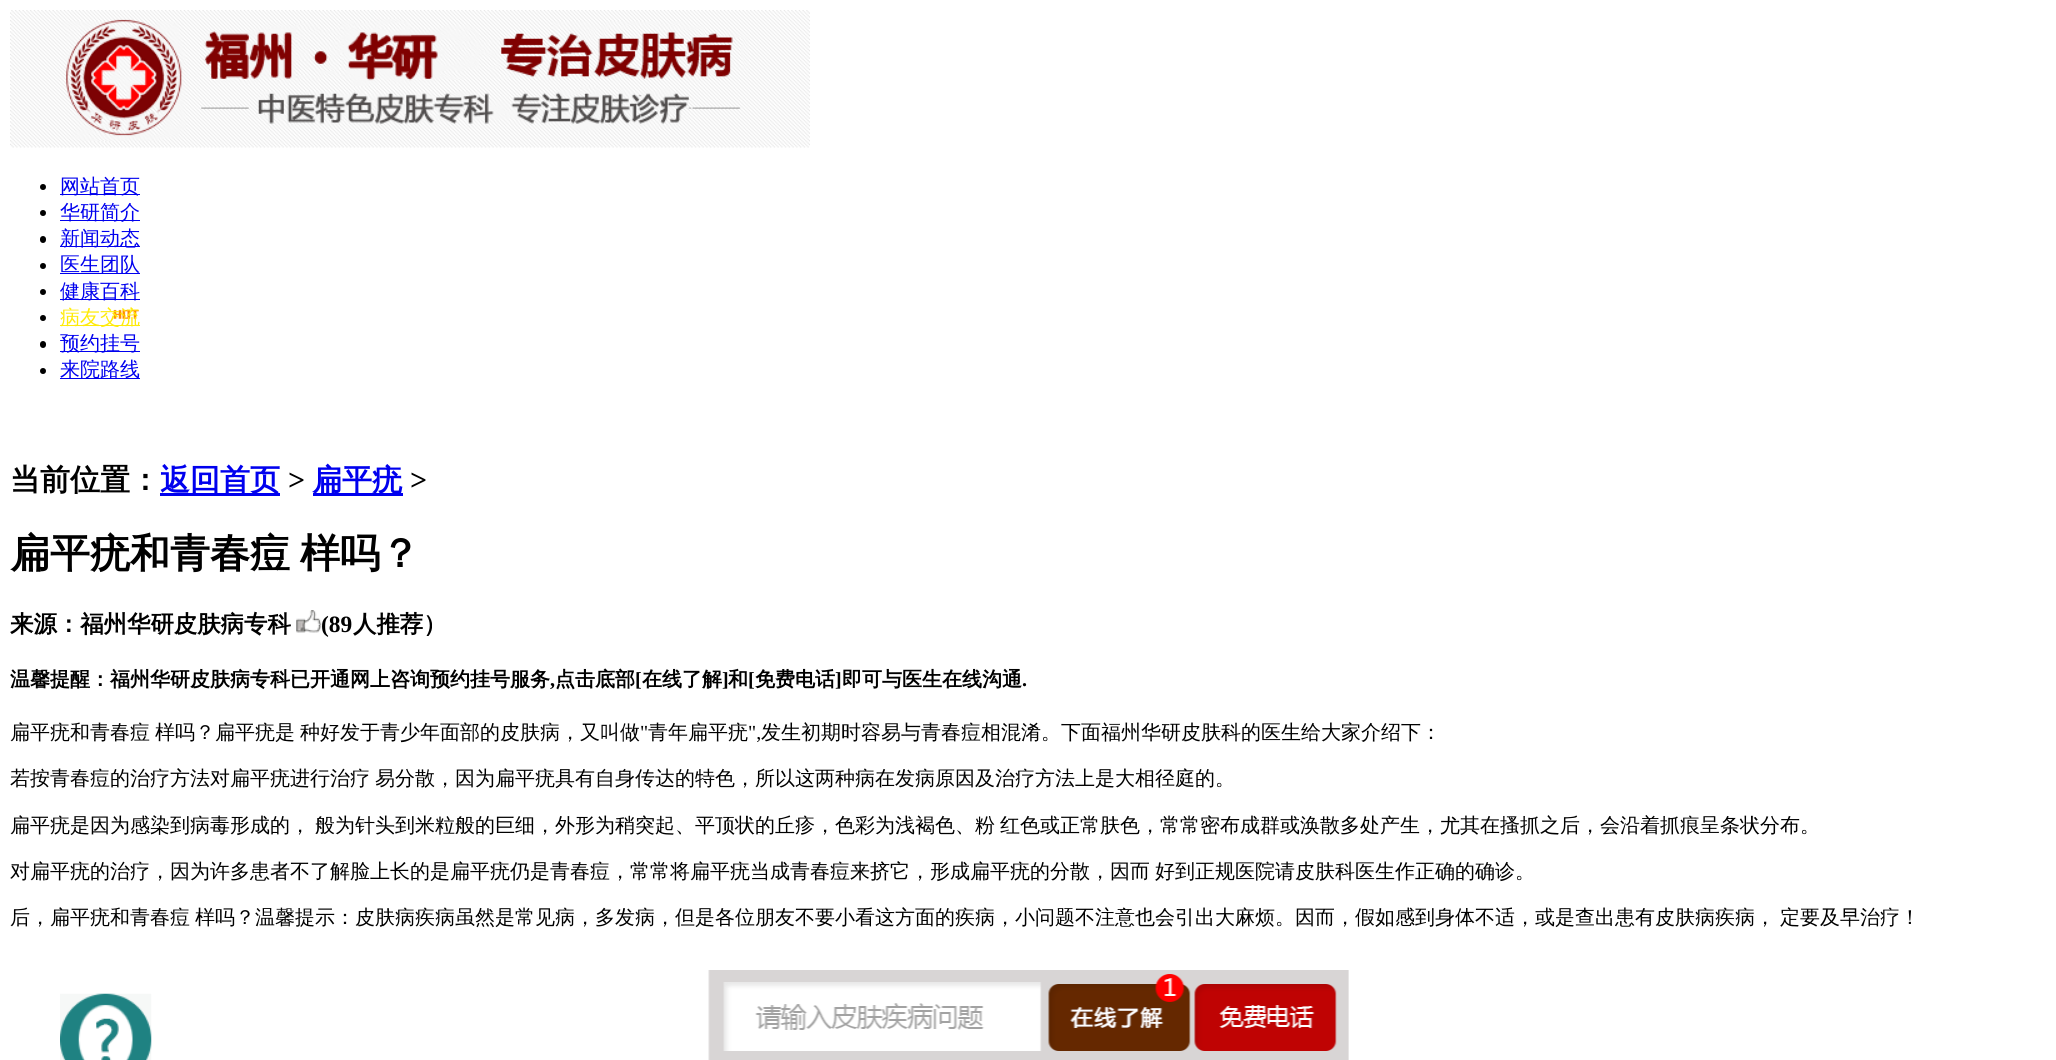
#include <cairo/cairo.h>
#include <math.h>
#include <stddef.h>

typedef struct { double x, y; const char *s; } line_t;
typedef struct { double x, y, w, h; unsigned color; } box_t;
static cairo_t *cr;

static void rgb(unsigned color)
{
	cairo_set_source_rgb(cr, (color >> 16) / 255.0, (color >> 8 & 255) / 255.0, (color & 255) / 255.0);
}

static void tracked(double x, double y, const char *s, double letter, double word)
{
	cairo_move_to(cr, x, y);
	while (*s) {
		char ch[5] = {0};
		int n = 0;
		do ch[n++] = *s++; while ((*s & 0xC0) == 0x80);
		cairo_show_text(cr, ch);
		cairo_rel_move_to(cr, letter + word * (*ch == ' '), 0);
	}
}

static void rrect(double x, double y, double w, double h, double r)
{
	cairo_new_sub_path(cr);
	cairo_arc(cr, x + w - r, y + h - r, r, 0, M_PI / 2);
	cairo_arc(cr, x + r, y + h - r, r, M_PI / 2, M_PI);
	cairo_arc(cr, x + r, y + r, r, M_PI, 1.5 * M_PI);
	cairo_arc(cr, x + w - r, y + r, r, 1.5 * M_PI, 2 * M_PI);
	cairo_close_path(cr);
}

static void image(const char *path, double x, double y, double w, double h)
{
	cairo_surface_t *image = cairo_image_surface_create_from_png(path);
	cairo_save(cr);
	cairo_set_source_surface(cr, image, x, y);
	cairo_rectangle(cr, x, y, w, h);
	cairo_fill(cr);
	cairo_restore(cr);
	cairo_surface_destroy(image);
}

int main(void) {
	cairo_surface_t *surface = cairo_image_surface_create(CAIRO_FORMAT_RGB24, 2056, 1060);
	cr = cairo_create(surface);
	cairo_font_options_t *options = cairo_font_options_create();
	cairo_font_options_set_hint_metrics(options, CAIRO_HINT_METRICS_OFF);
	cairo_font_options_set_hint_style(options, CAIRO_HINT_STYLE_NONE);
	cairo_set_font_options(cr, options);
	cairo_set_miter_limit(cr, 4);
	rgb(0xffffff);
	cairo_paint(cr);
	image("img/1.png", 10, 10, 800, 138);
	rgb(0x000000);
	cairo_arc(cr, 43, 187, 3, 0, 2 * M_PI);
	cairo_fill(cr);
	rgb(0x0000ee);
	cairo_rectangle(cr, 60, 194, 80, 1);
	cairo_fill(cr);
	rgb(0x000000);
	cairo_arc(cr, 43, 213, 3, 0, 2 * M_PI);
	cairo_fill(cr);
	rgb(0x0000ee);
	cairo_rectangle(cr, 60, 220, 80, 1);
	cairo_fill(cr);
	rgb(0x000000);
	rrect(40, 236, 6, 7, 3);
	cairo_fill(cr);
	rgb(0x0000ee);
	cairo_rectangle(cr, 60, 246, 80, 1);
	cairo_fill(cr);
	rgb(0x000000);
	cairo_arc(cr, 43, 266, 3, 0, 2 * M_PI);
	cairo_fill(cr);
	rgb(0x0000ee);
	cairo_rectangle(cr, 60, 273, 80, 1);
	cairo_fill(cr);
	rgb(0x000000);
	cairo_arc(cr, 43, 292, 3, 0, 2 * M_PI);
	cairo_fill(cr);
	rgb(0x0000ee);
	cairo_rectangle(cr, 60, 299, 80, 1);
	cairo_fill(cr);
	rgb(0xffeb0a);
	cairo_rectangle(cr, 60, 325, 80, 1);
	cairo_fill(cr);
	rgb(0x000000);
	cairo_arc(cr, 43, 318, 3, 0, 2 * M_PI);
	cairo_fill(cr);
	image("img/2.png", 113, 309, 26, 10);
	rrect(40, 341, 6, 7, 3);
	cairo_fill(cr);
	rgb(0x0000ee);
	cairo_rectangle(cr, 60, 351, 80, 1);
	cairo_fill(cr);
	rgb(0x000000);
	cairo_arc(cr, 43, 371, 3, 0, 2 * M_PI);
	cairo_fill(cr);
	{
		static const box_t items[] = {
			{60, 378, 80, 1, 0x0000ee},
			{160, 493, 120, 3, 0x0000ee},
			{313, 493, 90, 3, 0x0000ee},
		};
		for (size_t i = 0; i < sizeof items / sizeof *items; i++) {
			rgb(items[i].color);
			cairo_rectangle(cr, items[i].x, items[i].y, items[i].w, items[i].h);
			cairo_fill(cr);
		}
	}
	image("img/3.png", 296, 610, 26, 23);
	image("img/4.png", 60, 993, 92, 67);
	image("img/5.png", 708, 970, 641, 90);
	cairo_select_font_face(cr, "WenQuanYi Zen Hei Medium", CAIRO_FONT_SLANT_NORMAL, CAIRO_FONT_WEIGHT_NORMAL);
	cairo_set_font_size(cr, 20);
	{
		static const line_t items[] = {
			{60, 193, "网站首页"},
			{60, 219, "华研简介"},
			{60, 245, "新闻动态"},
			{60, 271, "医生团队"},
			{60, 298, "健康百科"},
		};
		for (size_t i = 0; i < sizeof items / sizeof *items; i++) {
			cairo_move_to(cr, items[i].x, items[i].y);
			cairo_show_text(cr, items[i].s);
		}
	}
	rgb(0xffeb0a);
	cairo_move_to(cr, 60, 324);
	cairo_show_text(cr, "病友交流");
	rgb(0x0000ee);
	cairo_move_to(cr, 60, 350);
	cairo_show_text(cr, "预约挂号");
	cairo_move_to(cr, 60, 376);
	cairo_show_text(cr, "来院路线");
	cairo_select_font_face(cr, "WenQuanYi Zen Hei", CAIRO_FONT_SLANT_NORMAL, CAIRO_FONT_WEIGHT_BOLD);
	cairo_set_font_size(cr, 30);
	rgb(0x000000);
	cairo_move_to(cr, 10, 490);
	cairo_show_text(cr, "当前位置：");
	rgb(0x0000ee);
	cairo_move_to(cr, 160, 490);
	cairo_show_text(cr, "返回首页");
	cairo_select_font_face(cr, "Liberation Serif", CAIRO_FONT_SLANT_NORMAL, CAIRO_FONT_WEIGHT_BOLD);
	rgb(0x000000);
	cairo_move_to(cr, 288, 490);
	cairo_show_text(cr, ">");
	cairo_select_font_face(cr, "WenQuanYi Zen Hei", CAIRO_FONT_SLANT_NORMAL, CAIRO_FONT_WEIGHT_BOLD);
	rgb(0x0000ee);
	cairo_move_to(cr, 312, 490);
	cairo_show_text(cr, "扁平疣");
	cairo_select_font_face(cr, "Liberation Serif", CAIRO_FONT_SLANT_NORMAL, CAIRO_FONT_WEIGHT_BOLD);
	rgb(0x000000);
	cairo_move_to(cr, 410, 490);
	cairo_show_text(cr, ">");
	cairo_select_font_face(cr, "WenQuanYi Zen Hei", CAIRO_FONT_SLANT_NORMAL, CAIRO_FONT_WEIGHT_BOLD);
	cairo_set_font_size(cr, 40);
	tracked(10, 567, "扁平疣和青春痘 样吗？", 0, -2);
	cairo_set_font_size(cr, 23.4);
	cairo_move_to(cr, 10, 632);
	cairo_show_text(cr, "来源：福州华研皮肤病专科");
	cairo_select_font_face(cr, "Liberation Serif", CAIRO_FONT_SLANT_NORMAL, CAIRO_FONT_WEIGHT_BOLD);
	cairo_move_to(cr, 321, 632);
	cairo_show_text(cr, "(89");
	cairo_select_font_face(cr, "WenQuanYi Zen Hei", CAIRO_FONT_SLANT_NORMAL, CAIRO_FONT_WEIGHT_BOLD);
	cairo_move_to(cr, 353, 632);
	cairo_show_text(cr, "人推荐）");
	cairo_set_font_size(cr, 20);
	cairo_move_to(cr, 10, 686);
	cairo_show_text(cr, "温馨提醒：福州华研皮肤病专科已开通网上咨询预约挂号服务");
	cairo_select_font_face(cr, "Liberation Serif", CAIRO_FONT_SLANT_NORMAL, CAIRO_FONT_WEIGHT_BOLD);
	cairo_move_to(cr, 550, 686);
	cairo_show_text(cr, ",");
	cairo_select_font_face(cr, "WenQuanYi Zen Hei", CAIRO_FONT_SLANT_NORMAL, CAIRO_FONT_WEIGHT_BOLD);
	cairo_move_to(cr, 555, 686);
	cairo_show_text(cr, "点击底部");
	cairo_select_font_face(cr, "Liberation Serif", CAIRO_FONT_SLANT_NORMAL, CAIRO_FONT_WEIGHT_BOLD);
	cairo_move_to(cr, 635, 686);
	cairo_show_text(cr, "[");
	cairo_select_font_face(cr, "WenQuanYi Zen Hei", CAIRO_FONT_SLANT_NORMAL, CAIRO_FONT_WEIGHT_BOLD);
	cairo_move_to(cr, 642, 686);
	cairo_show_text(cr, "在线了解");
	cairo_select_font_face(cr, "Liberation Serif", CAIRO_FONT_SLANT_NORMAL, CAIRO_FONT_WEIGHT_BOLD);
	cairo_move_to(cr, 722, 686);
	cairo_show_text(cr, "]");
	cairo_select_font_face(cr, "WenQuanYi Zen Hei", CAIRO_FONT_SLANT_NORMAL, CAIRO_FONT_WEIGHT_BOLD);
	cairo_move_to(cr, 728, 686);
	cairo_show_text(cr, "和");
	cairo_select_font_face(cr, "Liberation Serif", CAIRO_FONT_SLANT_NORMAL, CAIRO_FONT_WEIGHT_BOLD);
	cairo_move_to(cr, 748, 686);
	cairo_show_text(cr, "[");
	cairo_select_font_face(cr, "WenQuanYi Zen Hei", CAIRO_FONT_SLANT_NORMAL, CAIRO_FONT_WEIGHT_BOLD);
	cairo_move_to(cr, 755, 686);
	cairo_show_text(cr, "免费电话");
	cairo_select_font_face(cr, "Liberation Serif", CAIRO_FONT_SLANT_NORMAL, CAIRO_FONT_WEIGHT_BOLD);
	cairo_move_to(cr, 835, 686);
	cairo_show_text(cr, "]");
	cairo_select_font_face(cr, "WenQuanYi Zen Hei", CAIRO_FONT_SLANT_NORMAL, CAIRO_FONT_WEIGHT_BOLD);
	cairo_move_to(cr, 842, 686);
	cairo_show_text(cr, "即可与医生在线沟通");
	cairo_select_font_face(cr, "Liberation Serif", CAIRO_FONT_SLANT_NORMAL, CAIRO_FONT_WEIGHT_BOLD);
	cairo_move_to(cr, 1022, 686);
	cairo_show_text(cr, ".");
	cairo_select_font_face(cr, "WenQuanYi Zen Hei Medium", CAIRO_FONT_SLANT_NORMAL, CAIRO_FONT_WEIGHT_NORMAL);
	tracked(10, 739, "扁平疣和青春痘 样吗？扁平疣是 种好发于青少年面部的皮肤病，又叫做", 0, -1);
	cairo_select_font_face(cr, "Liberation Serif", CAIRO_FONT_SLANT_NORMAL, CAIRO_FONT_WEIGHT_NORMAL);
	cairo_move_to(cr, 640, 739);
	cairo_show_text(cr, "\"");
	cairo_select_font_face(cr, "WenQuanYi Zen Hei Medium", CAIRO_FONT_SLANT_NORMAL, CAIRO_FONT_WEIGHT_NORMAL);
	cairo_move_to(cr, 648, 739);
	cairo_show_text(cr, "青年扁平疣");
	cairo_select_font_face(cr, "Liberation Serif", CAIRO_FONT_SLANT_NORMAL, CAIRO_FONT_WEIGHT_NORMAL);
	cairo_move_to(cr, 748, 739);
	cairo_show_text(cr, "\",");
	cairo_select_font_face(cr, "WenQuanYi Zen Hei Medium", CAIRO_FONT_SLANT_NORMAL, CAIRO_FONT_WEIGHT_NORMAL);
	cairo_move_to(cr, 761, 739);
	cairo_show_text(cr, "发生初期时容易与青春痘相混淆。下面福州华研皮肤科的医生给大家介绍下：");
	{
		static const line_t items[] = {
			{10, 785, "若按青春痘的治疗方法对扁平疣进行治疗 易分散，因为扁平疣具有自身传达的特色，所以这两种病在发病原因及治疗方法上是大相径庭的。"},
			{10, 832, "扁平疣是因为感染到病毒形成的， 般为针头到米粒般的巨细，外形为稍突起、平顶状的丘疹，色彩为浅褐色、粉 红色或正常肤色，常常密布成群或涣散多处产生，尤其在搔抓之后，会沿着抓痕呈条状分布。"},
			{10, 878, "对扁平疣的治疗，因为许多患者不了解脸上长的是扁平疣仍是青春痘，常常将扁平疣当成青春痘来挤它，形成扁平疣的分散，因而 好到正规医院请皮肤科医生作正确的确诊。"},
			{10, 924, "后，扁平疣和青春痘 样吗？温馨提示：皮肤病疾病虽然是常见病，多发病，但是各位朋友不要小看这方面的疾病，小问题不注意也会引出大麻烦。因而，假如感到身体不适，或是查出患有皮肤病疾病， 定要及早治疗！"},
		};
		for (size_t i = 0; i < sizeof items / sizeof *items; i++) {
			tracked(items[i].x, items[i].y, items[i].s, 0, -1);
		}
	}
	cairo_surface_write_to_png(surface, "page.png");
	cairo_font_options_destroy(options);
	cairo_destroy(cr);
	cairo_surface_destroy(surface);
	return 0;
}
